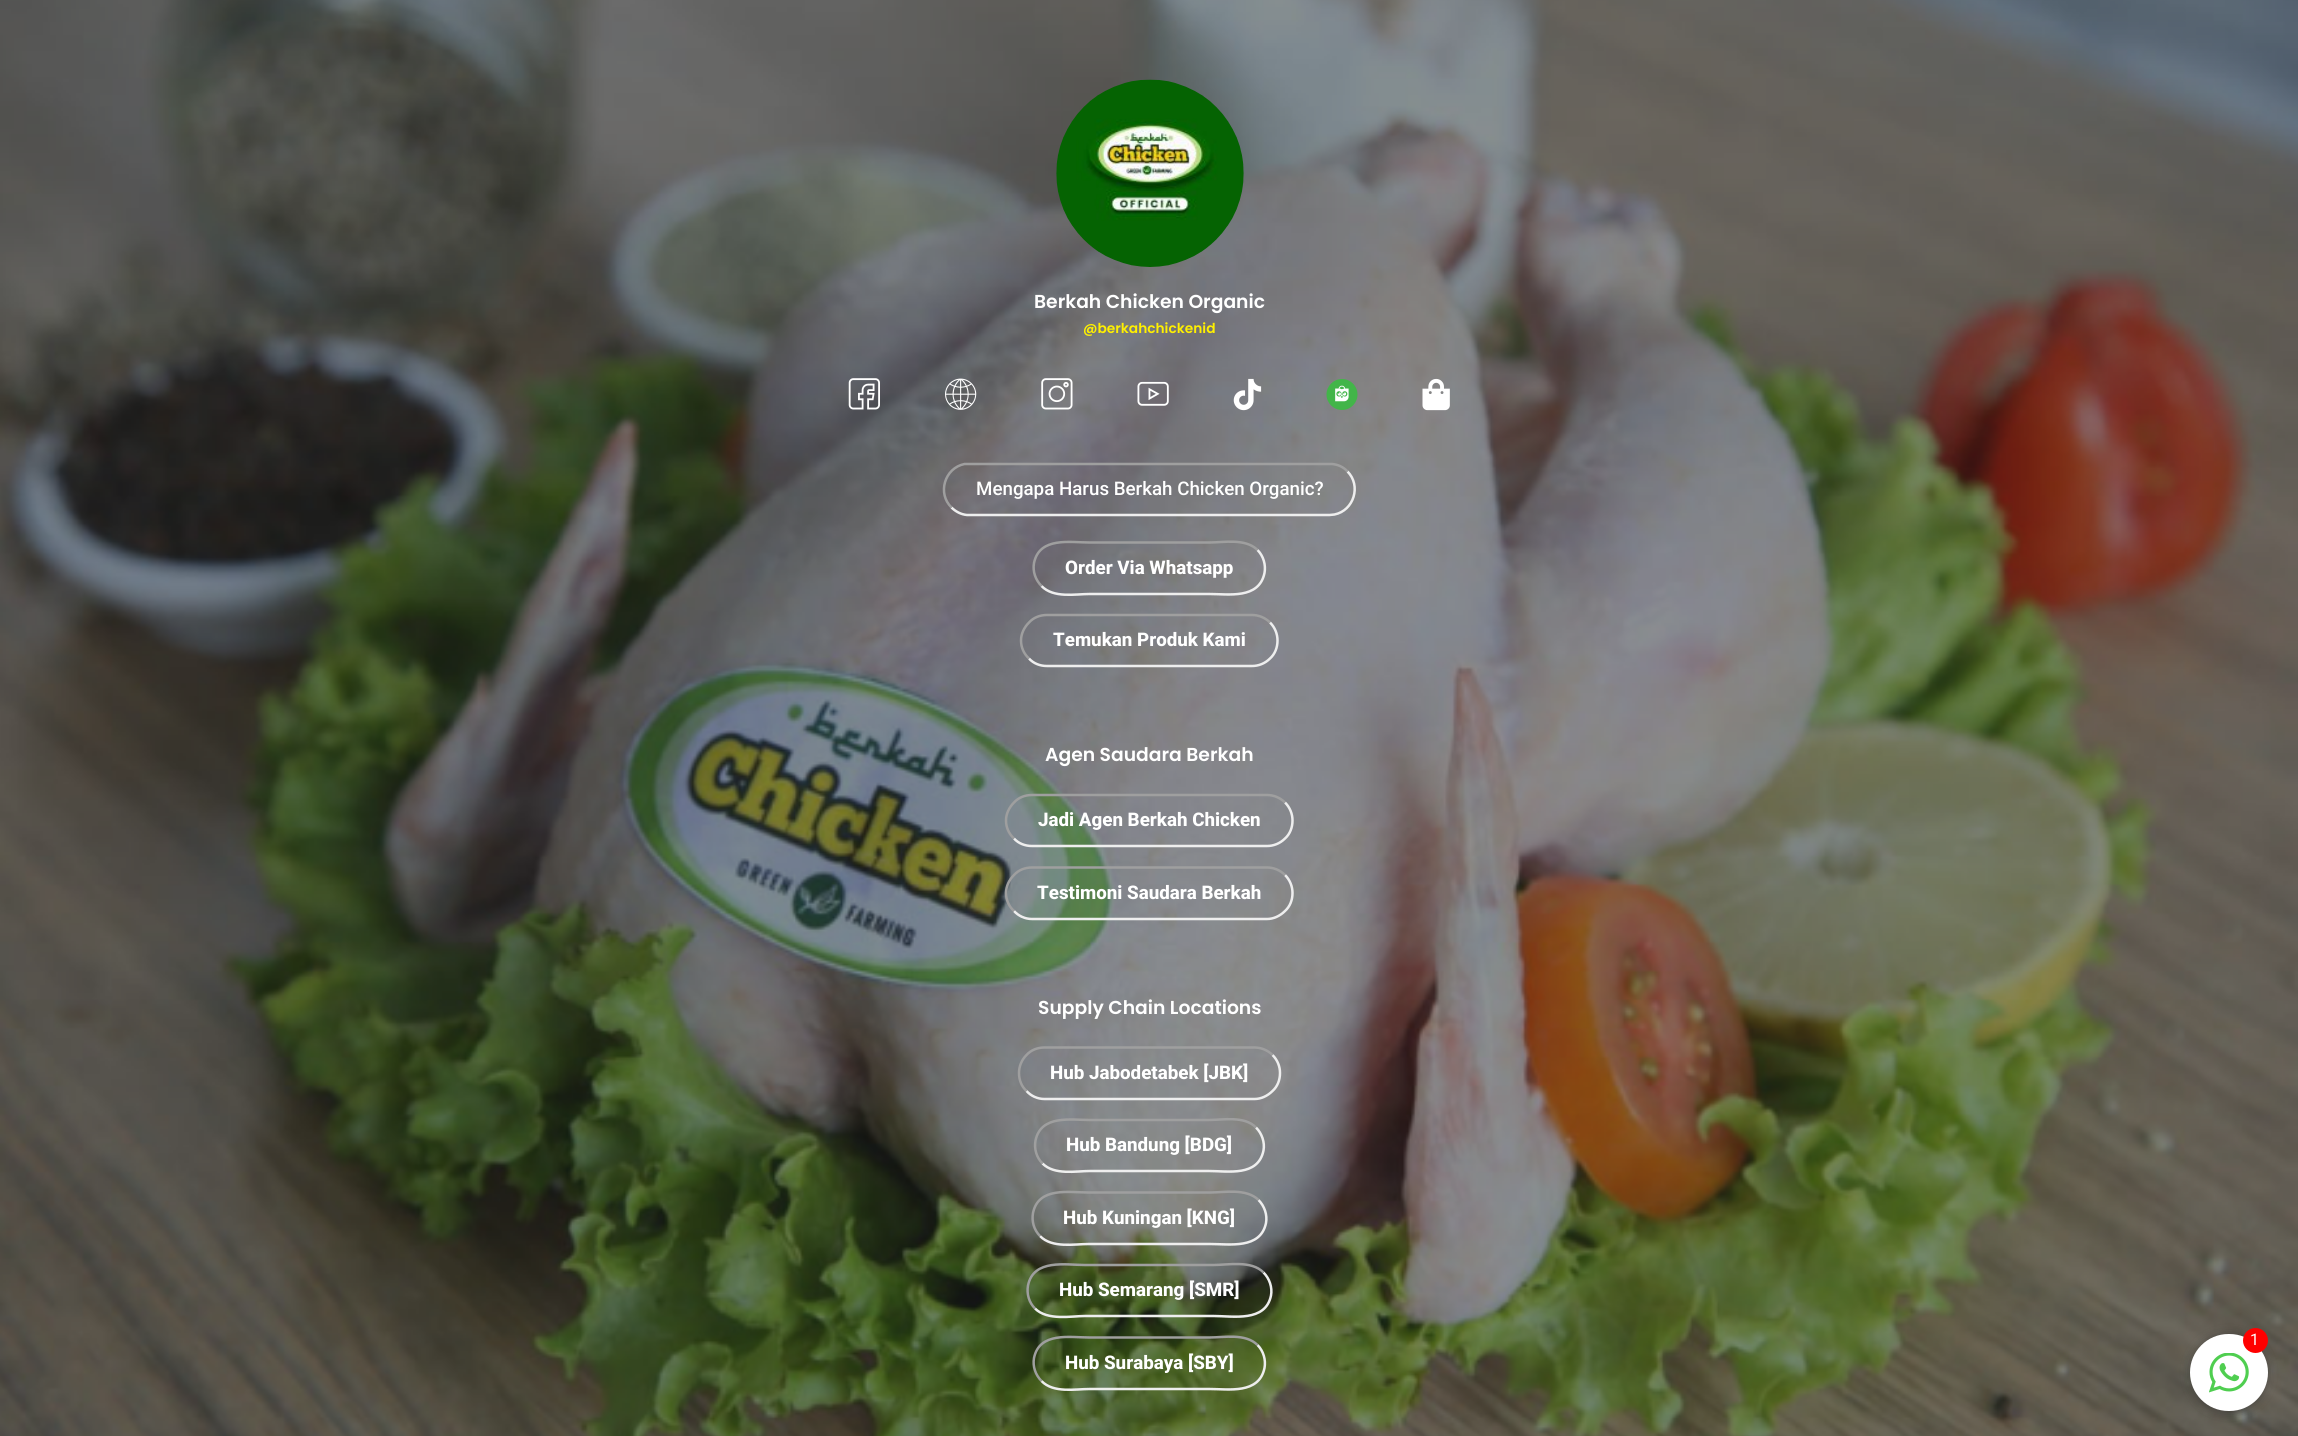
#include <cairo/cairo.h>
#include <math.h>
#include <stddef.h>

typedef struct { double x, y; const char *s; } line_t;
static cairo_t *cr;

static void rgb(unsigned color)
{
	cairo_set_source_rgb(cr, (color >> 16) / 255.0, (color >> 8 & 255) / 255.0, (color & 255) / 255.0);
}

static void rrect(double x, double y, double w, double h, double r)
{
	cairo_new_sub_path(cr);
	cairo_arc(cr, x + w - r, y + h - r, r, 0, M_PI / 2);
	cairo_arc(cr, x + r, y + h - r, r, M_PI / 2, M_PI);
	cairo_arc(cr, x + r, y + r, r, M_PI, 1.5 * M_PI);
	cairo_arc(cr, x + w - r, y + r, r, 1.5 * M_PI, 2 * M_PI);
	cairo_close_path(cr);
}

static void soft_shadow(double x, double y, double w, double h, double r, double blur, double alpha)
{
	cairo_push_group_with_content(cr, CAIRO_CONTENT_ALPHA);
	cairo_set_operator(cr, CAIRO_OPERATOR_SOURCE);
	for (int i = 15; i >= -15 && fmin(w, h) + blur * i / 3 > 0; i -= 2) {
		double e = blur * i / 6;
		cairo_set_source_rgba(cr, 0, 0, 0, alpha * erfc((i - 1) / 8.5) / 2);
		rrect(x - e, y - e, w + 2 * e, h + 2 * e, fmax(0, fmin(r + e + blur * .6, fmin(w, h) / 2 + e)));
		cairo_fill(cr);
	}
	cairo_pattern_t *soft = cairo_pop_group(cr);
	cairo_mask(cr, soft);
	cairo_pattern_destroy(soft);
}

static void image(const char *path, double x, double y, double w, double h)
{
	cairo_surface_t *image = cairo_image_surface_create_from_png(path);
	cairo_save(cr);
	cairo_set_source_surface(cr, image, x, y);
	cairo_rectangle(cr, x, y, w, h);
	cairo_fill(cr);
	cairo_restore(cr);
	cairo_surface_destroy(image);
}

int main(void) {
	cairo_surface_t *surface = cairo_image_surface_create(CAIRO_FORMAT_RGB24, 2298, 1436);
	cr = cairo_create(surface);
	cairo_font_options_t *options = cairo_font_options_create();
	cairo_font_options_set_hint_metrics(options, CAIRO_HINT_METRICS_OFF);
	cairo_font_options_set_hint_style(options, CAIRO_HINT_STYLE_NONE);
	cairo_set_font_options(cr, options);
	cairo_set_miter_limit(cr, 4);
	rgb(0xffffff);
	cairo_paint(cr);
	image("img/1.png", 0, 0, 2298, 1436);
	image("img/2.png", 1056, 79, 188, 188);
	image("img/3.png", 848, 378, 32, 32);
	image("img/4.png", 945, 378, 32, 32);
	image("img/5.png", 1041, 378, 32, 32);
	image("img/6.png", 1137, 381, 32, 25);
	image("img/7.png", 1233, 378, 29, 33);
	image("img/8.png", 1326, 379, 32, 31);
	image("img/9.png", 1422, 378, 28, 33);
	cairo_new_path(cr);
	cairo_move_to(cr, 1347.5, 471.5);
	cairo_curve_to(cr, 1361.5, 485.5, 1354, 510.5, 1334.5, 514.5);
	cairo_line_to(cr, 1329.5, 515);
	cairo_line_to(cr, 967, 515);
	cairo_curve_to(cr, 961, 514.5, 955.5, 511.5, 951.5, 507.5);
	rgb(0xeeeeee);
	cairo_set_line_width(cr, 2.5);
	cairo_stroke(cr);
	cairo_new_path(cr);
	cairo_move_to(cr, 951.5, 507.5);
	cairo_curve_to(cr, 937, 493.5, 944.5, 468, 964.5, 464);
	cairo_line_to(cr, 969.5, 464);
	cairo_line_to(cr, 1332, 464);
	cairo_curve_to(cr, 1338, 464.5, 1343.5, 467, 1347.5, 471.5);
	rgb(0x9f9f9f);
	cairo_stroke(cr);
	cairo_new_path(cr);
	cairo_move_to(cr, 1257.5, 550);
	cairo_curve_to(cr, 1263.5, 556, 1266, 565, 1264.5, 573);
	cairo_curve_to(cr, 1259, 599.5, 1228.5, 594, 1209.5, 594);
	cairo_line_to(cr, 1089.5, 594);
	cairo_curve_to(cr, 1075.5, 594, 1053.5, 598.5, 1041.5, 586);
	rgb(0xeeeeee);
	cairo_stroke(cr);
	cairo_new_path(cr);
	cairo_move_to(cr, 1041.5, 586);
	cairo_curve_to(cr, 1035.5, 580, 1032.5, 571.5, 1034, 563);
	cairo_curve_to(cr, 1039.5, 536.5, 1070, 542.5, 1089.5, 542.5);
	cairo_line_to(cr, 1209.5, 542.5);
	cairo_curve_to(cr, 1223.5, 542.5, 1245.5, 538, 1257.5, 550);
	rgb(0x9f9f9f);
	cairo_stroke(cr);
	cairo_new_path(cr);
	cairo_move_to(cr, 1270, 622.5);
	cairo_curve_to(cr, 1275, 627.5, 1277.5, 634, 1277.5, 640.5);
	cairo_curve_to(cr, 1277.5, 647.5, 1275, 654, 1270, 658.5);
	cairo_curve_to(cr, 1265, 663.5, 1258.5, 666, 1252, 666);
	cairo_line_to(cr, 1047, 666);
	cairo_curve_to(cr, 1040, 666, 1033.5, 663.5, 1029, 658.5);
	rgb(0xeeeeee);
	cairo_stroke(cr);
	cairo_new_path(cr);
	cairo_move_to(cr, 1029, 658.5);
	cairo_curve_to(cr, 1024, 654, 1021, 647.5, 1021, 640.5);
	cairo_curve_to(cr, 1021, 634, 1024, 627.5, 1029, 622.5);
	cairo_curve_to(cr, 1033.5, 617.5, 1040, 615, 1047, 615);
	cairo_line_to(cr, 1252, 615);
	cairo_curve_to(cr, 1258.5, 615, 1265, 617.5, 1270, 622.5);
	rgb(0x9f9f9f);
	cairo_stroke(cr);
	cairo_new_path(cr);
	cairo_move_to(cr, 1285, 802.5);
	cairo_curve_to(cr, 1290, 807.5, 1292.5, 814, 1292.5, 820.5);
	cairo_curve_to(cr, 1292.5, 827.5, 1290, 834, 1285, 838.5);
	cairo_curve_to(cr, 1280, 843.5, 1273.5, 846, 1267, 846);
	cairo_line_to(cr, 1032, 846);
	cairo_curve_to(cr, 1025, 846, 1018.5, 843.5, 1014, 838.5);
	rgb(0xeeeeee);
	cairo_stroke(cr);
	cairo_new_path(cr);
	cairo_move_to(cr, 1014, 838.5);
	cairo_curve_to(cr, 1009, 834, 1006, 827.5, 1006, 820.5);
	cairo_curve_to(cr, 1006, 814, 1009, 807.5, 1014, 802.5);
	cairo_curve_to(cr, 1018.5, 797.5, 1025, 795, 1032, 795);
	cairo_line_to(cr, 1267, 795);
	cairo_curve_to(cr, 1273.5, 795, 1280, 797.5, 1285, 802.5);
	rgb(0x9f9f9f);
	cairo_stroke(cr);
	cairo_new_path(cr);
	cairo_move_to(cr, 1285, 875);
	cairo_curve_to(cr, 1290, 880, 1292.5, 886.5, 1292.5, 893);
	cairo_curve_to(cr, 1292.5, 900, 1290, 906.5, 1285, 911);
	cairo_curve_to(cr, 1280, 916, 1273.5, 919, 1267, 919);
	cairo_line_to(cr, 1032, 919);
	cairo_curve_to(cr, 1025, 919, 1018.5, 916, 1014, 911);
	rgb(0xeeeeee);
	cairo_stroke(cr);
	cairo_new_path(cr);
	cairo_move_to(cr, 1014, 911);
	cairo_curve_to(cr, 1009, 906.5, 1006, 900, 1006, 893);
	cairo_curve_to(cr, 1006, 886.5, 1009, 880, 1014, 875);
	cairo_curve_to(cr, 1018.5, 870, 1025, 867.5, 1032, 867.5);
	cairo_line_to(cr, 1267, 867.5);
	cairo_curve_to(cr, 1273.5, 867.5, 1280, 870, 1285, 875);
	rgb(0x9f9f9f);
	cairo_stroke(cr);
	cairo_new_path(cr);
	cairo_move_to(cr, 1272.5, 1055);
	cairo_curve_to(cr, 1277.5, 1060, 1280, 1066.5, 1280, 1073);
	cairo_curve_to(cr, 1280, 1080, 1277.5, 1086.5, 1272.5, 1091);
	cairo_curve_to(cr, 1267.5, 1096, 1261, 1099, 1254.5, 1099);
	cairo_line_to(cr, 1044.5, 1099);
	cairo_curve_to(cr, 1037.5, 1099, 1031, 1096, 1026.5, 1091);
	rgb(0xeeeeee);
	cairo_stroke(cr);
	cairo_new_path(cr);
	cairo_move_to(cr, 1026.5, 1091);
	cairo_curve_to(cr, 1021.5, 1086.5, 1019, 1080, 1019, 1073);
	cairo_curve_to(cr, 1019, 1066.5, 1021.5, 1060, 1026.5, 1055);
	cairo_curve_to(cr, 1031, 1050, 1037.5, 1047.5, 1044.5, 1047.5);
	cairo_line_to(cr, 1254.5, 1047.5);
	cairo_curve_to(cr, 1261, 1047.5, 1267.5, 1050, 1272.5, 1055);
	rgb(0x9f9f9f);
	cairo_stroke(cr);
	cairo_new_path(cr);
	cairo_move_to(cr, 1256, 1127.5);
	cairo_curve_to(cr, 1262, 1133.5, 1265, 1142.5, 1263.5, 1150.5);
	cairo_curve_to(cr, 1258, 1177, 1228, 1171, 1208.5, 1171);
	cairo_line_to(cr, 1090, 1171);
	cairo_curve_to(cr, 1076, 1171, 1054.5, 1175.5, 1042.5, 1163.5);
	rgb(0xeeeeee);
	cairo_stroke(cr);
	cairo_new_path(cr);
	cairo_move_to(cr, 1042.5, 1163.5);
	cairo_curve_to(cr, 1036.5, 1157.5, 1034, 1149, 1035.5, 1140.5);
	cairo_curve_to(cr, 1041, 1114.5, 1071, 1120, 1090, 1120);
	cairo_line_to(cr, 1208.5, 1120);
	cairo_curve_to(cr, 1222.5, 1120, 1244.5, 1115.5, 1256, 1127.5);
	rgb(0x9f9f9f);
	cairo_stroke(cr);
	cairo_new_path(cr);
	cairo_move_to(cr, 1258.5, 1200);
	cairo_curve_to(cr, 1264.5, 1206, 1267.5, 1215, 1266, 1223);
	cairo_curve_to(cr, 1260.5, 1249.5, 1229.5, 1244, 1210, 1244);
	cairo_line_to(cr, 1088.5, 1244);
	cairo_curve_to(cr, 1074.5, 1244, 1052, 1248.5, 1040, 1236);
	rgb(0xeeeeee);
	cairo_stroke(cr);
	cairo_new_path(cr);
	cairo_move_to(cr, 1040, 1236);
	cairo_curve_to(cr, 1034, 1230, 1031.5, 1221.5, 1033, 1213);
	cairo_curve_to(cr, 1038.5, 1186.5, 1069, 1192.5, 1088.5, 1192.5);
	cairo_line_to(cr, 1210, 1192.5);
	cairo_curve_to(cr, 1224, 1192.5, 1246.5, 1188, 1258.5, 1200);
	rgb(0x9f9f9f);
	cairo_stroke(cr);
	cairo_new_path(cr);
	cairo_move_to(cr, 1263.5, 1272.5);
	cairo_curve_to(cr, 1269.5, 1278.5, 1272.5, 1287.5, 1271, 1295.5);
	cairo_curve_to(cr, 1265.5, 1322.5, 1233, 1316, 1213.5, 1316);
	cairo_line_to(cr, 1085, 1316);
	cairo_curve_to(cr, 1071.5, 1316, 1047.5, 1321, 1035, 1308.5);
	rgb(0xeeeeee);
	cairo_stroke(cr);
	cairo_new_path(cr);
	cairo_move_to(cr, 1035, 1308.5);
	cairo_curve_to(cr, 1029, 1302.5, 1026.5, 1294, 1028, 1285.5);
	cairo_curve_to(cr, 1033.5, 1258.5, 1066, 1265, 1085, 1265);
	cairo_line_to(cr, 1213.5, 1265);
	cairo_curve_to(cr, 1227.5, 1265, 1251.5, 1260, 1263.5, 1272.5);
	rgb(0x9f9f9f);
	cairo_stroke(cr);
	cairo_new_path(cr);
	cairo_move_to(cr, 1257.5, 1345);
	cairo_curve_to(cr, 1263.5, 1351, 1266, 1360, 1264.5, 1368);
	cairo_curve_to(cr, 1259, 1394.5, 1228.5, 1389, 1209.5, 1389);
	cairo_line_to(cr, 1089.5, 1389);
	cairo_curve_to(cr, 1075.5, 1389, 1053.5, 1393.5, 1041.5, 1381);
	rgb(0xeeeeee);
	cairo_stroke(cr);
	cairo_new_path(cr);
	cairo_move_to(cr, 1041.5, 1381);
	cairo_curve_to(cr, 1035.5, 1375, 1032.5, 1366.5, 1034, 1358);
	cairo_curve_to(cr, 1039.5, 1331.5, 1070, 1337.5, 1089.5, 1337.5);
	cairo_line_to(cr, 1209.5, 1337.5);
	cairo_curve_to(cr, 1223.5, 1337.5, 1245.5, 1333, 1257.5, 1345);
	rgb(0x9f9f9f);
	cairo_stroke(cr);
	rgb(0x333333);
	soft_shadow(2194, 1338, 70, 70, 35, 6, 1);
	rgb(0xffffff);
	rrect(2190, 1334, 78, 77, 38.5);
	cairo_fill(cr);
	rgb(0xff0000);
	cairo_arc(cr, 2255.5, 1340.5, 12.5, 0, 2 * M_PI);
	cairo_fill(cr);
	image("img/10.png", 2209, 1353, 40, 40);
	cairo_select_font_face(cr, "Poppins SemiBold", CAIRO_FONT_SLANT_NORMAL, CAIRO_FONT_WEIGHT_NORMAL);
	cairo_set_font_size(cr, 18.75);
	rgb(0xffffff);
	cairo_move_to(cr, 1034, 308);
	cairo_show_text(cr, "Berkah Chicken Organic");
	cairo_set_font_size(cr, 13.75);
	rgb(0xfff000);
	cairo_move_to(cr, 1083, 333);
	cairo_show_text(cr, "@berkahchickenid");
	cairo_select_font_face(cr, "Roboto Medium", CAIRO_FONT_SLANT_NORMAL, CAIRO_FONT_WEIGHT_NORMAL);
	cairo_set_font_size(cr, 18.75);
	rgb(0xffffff);
	cairo_move_to(cr, 976, 495);
	cairo_show_text(cr, "Mengapa Harus Berkah Chicken Organic?");
	cairo_select_font_face(cr, "Roboto ExtraBold", CAIRO_FONT_SLANT_NORMAL, CAIRO_FONT_WEIGHT_NORMAL);
	cairo_move_to(cr, 1065, 574);
	cairo_show_text(cr, "Order Via Whatsapp");
	cairo_move_to(cr, 1053, 646);
	cairo_show_text(cr, "Temukan Produk Kami");
	cairo_select_font_face(cr, "Poppins SemiBold", CAIRO_FONT_SLANT_NORMAL, CAIRO_FONT_WEIGHT_NORMAL);
	cairo_move_to(cr, 1045, 761);
	cairo_show_text(cr, "Agen Saudara Berkah");
	cairo_select_font_face(cr, "Roboto ExtraBold", CAIRO_FONT_SLANT_NORMAL, CAIRO_FONT_WEIGHT_NORMAL);
	cairo_move_to(cr, 1038, 826);
	cairo_show_text(cr, "Jadi Agen Berkah Chicken");
	cairo_move_to(cr, 1037, 899);
	cairo_show_text(cr, "Testimoni Saudara Berkah");
	cairo_select_font_face(cr, "Poppins SemiBold", CAIRO_FONT_SLANT_NORMAL, CAIRO_FONT_WEIGHT_NORMAL);
	cairo_move_to(cr, 1038, 1014);
	cairo_show_text(cr, "Supply Chain Locations");
	cairo_select_font_face(cr, "Roboto ExtraBold", CAIRO_FONT_SLANT_NORMAL, CAIRO_FONT_WEIGHT_NORMAL);
	{
		static const line_t items[] = {
			{1050, 1079, "Hub Jabodetabek [JBK]"},
			{1066, 1151, "Hub Bandung [BDG]"},
			{1063, 1224, "Hub Kuningan [KNG]"},
			{1059, 1296, "Hub Semarang [SMR]"},
			{1065, 1369, "Hub Surabaya [SBY]"},
		};
		for (size_t i = 0; i < sizeof items / sizeof *items; i++) {
			cairo_move_to(cr, items[i].x, items[i].y);
			cairo_show_text(cr, items[i].s);
		}
	}
	cairo_select_font_face(cr, "Roboto", CAIRO_FONT_SLANT_NORMAL, CAIRO_FONT_WEIGHT_NORMAL);
	cairo_set_font_size(cr, 16);
	cairo_move_to(cr, 2250, 1345);
	cairo_show_text(cr, "1");
	cairo_surface_write_to_png(surface, "page.png");
	cairo_font_options_destroy(options);
	cairo_destroy(cr);
	cairo_surface_destroy(surface);
	return 0;
}
